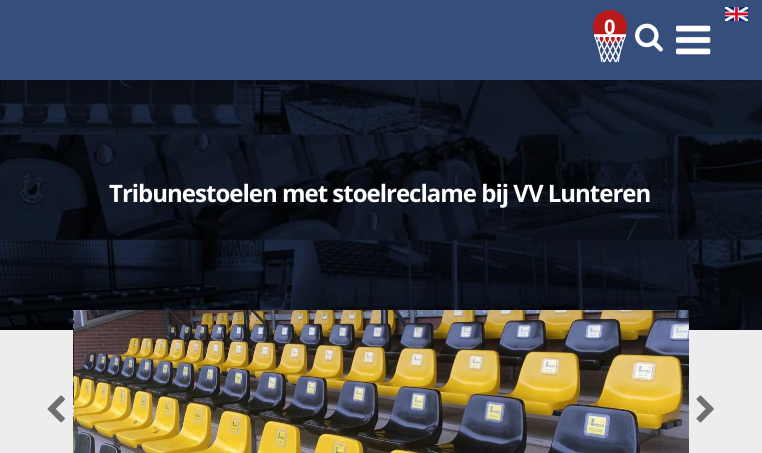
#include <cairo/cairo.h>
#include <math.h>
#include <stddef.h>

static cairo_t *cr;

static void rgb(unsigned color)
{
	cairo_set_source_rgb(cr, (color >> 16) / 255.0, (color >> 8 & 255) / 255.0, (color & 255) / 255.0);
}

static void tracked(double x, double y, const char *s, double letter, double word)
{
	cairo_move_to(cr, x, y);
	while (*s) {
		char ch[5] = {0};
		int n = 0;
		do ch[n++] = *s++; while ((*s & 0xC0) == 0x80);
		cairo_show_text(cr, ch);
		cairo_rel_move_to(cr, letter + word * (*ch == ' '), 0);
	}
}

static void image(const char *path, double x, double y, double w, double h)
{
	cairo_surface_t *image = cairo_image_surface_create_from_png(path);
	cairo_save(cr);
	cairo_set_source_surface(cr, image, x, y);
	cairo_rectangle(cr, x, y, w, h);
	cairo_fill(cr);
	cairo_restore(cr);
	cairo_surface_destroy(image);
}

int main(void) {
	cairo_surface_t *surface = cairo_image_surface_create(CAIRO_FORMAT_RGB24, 762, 453);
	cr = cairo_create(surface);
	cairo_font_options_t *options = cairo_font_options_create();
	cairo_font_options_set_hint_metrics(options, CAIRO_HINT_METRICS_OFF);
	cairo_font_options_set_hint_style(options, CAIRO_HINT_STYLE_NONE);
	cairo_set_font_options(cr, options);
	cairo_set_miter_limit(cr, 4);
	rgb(0xededed);
	cairo_paint(cr);
	rgb(0x364e7c);
	cairo_rectangle(cr, 0, 0, 762, 80);
	cairo_fill(cr);
	image("img/1.png", 725, 7, 23, 14);
	rgb(0xb91919);
	cairo_arc(cr, 610, 27, 17, 0, 2 * M_PI);
	cairo_fill(cr);
	image("img/2.png", 635, 23, 28, 29);
	image("img/3.png", 676, 25, 35, 30);
	image("img/5.png", 0, 80, 762, 250);
	image("img/6.png", 73, 310, 1, 143);
	image("img/7.png", 74, 310, 615, 143);
	image("img/8.png", 47, 395, 18, 28);
	image("img/9.png", 696, 395, 18, 28);
	cairo_select_font_face(cr, "Open Sans", CAIRO_FONT_SLANT_NORMAL, CAIRO_FONT_WEIGHT_BOLD);
	cairo_set_font_size(cr, 20);
	rgb(0xffffff);
	cairo_move_to(cr, 604, 34);
	cairo_show_text(cr, "0");
	image("img/4.png", 594, 34, 32, 29);
	cairo_set_font_size(cr, 24);
	tracked(109, 202, "Tribunestoelen met stoelreclame bij VV Lunteren", -1, 0);
	cairo_surface_write_to_png(surface, "page.png");
	cairo_font_options_destroy(options);
	cairo_destroy(cr);
	cairo_surface_destroy(surface);
	return 0;
}
